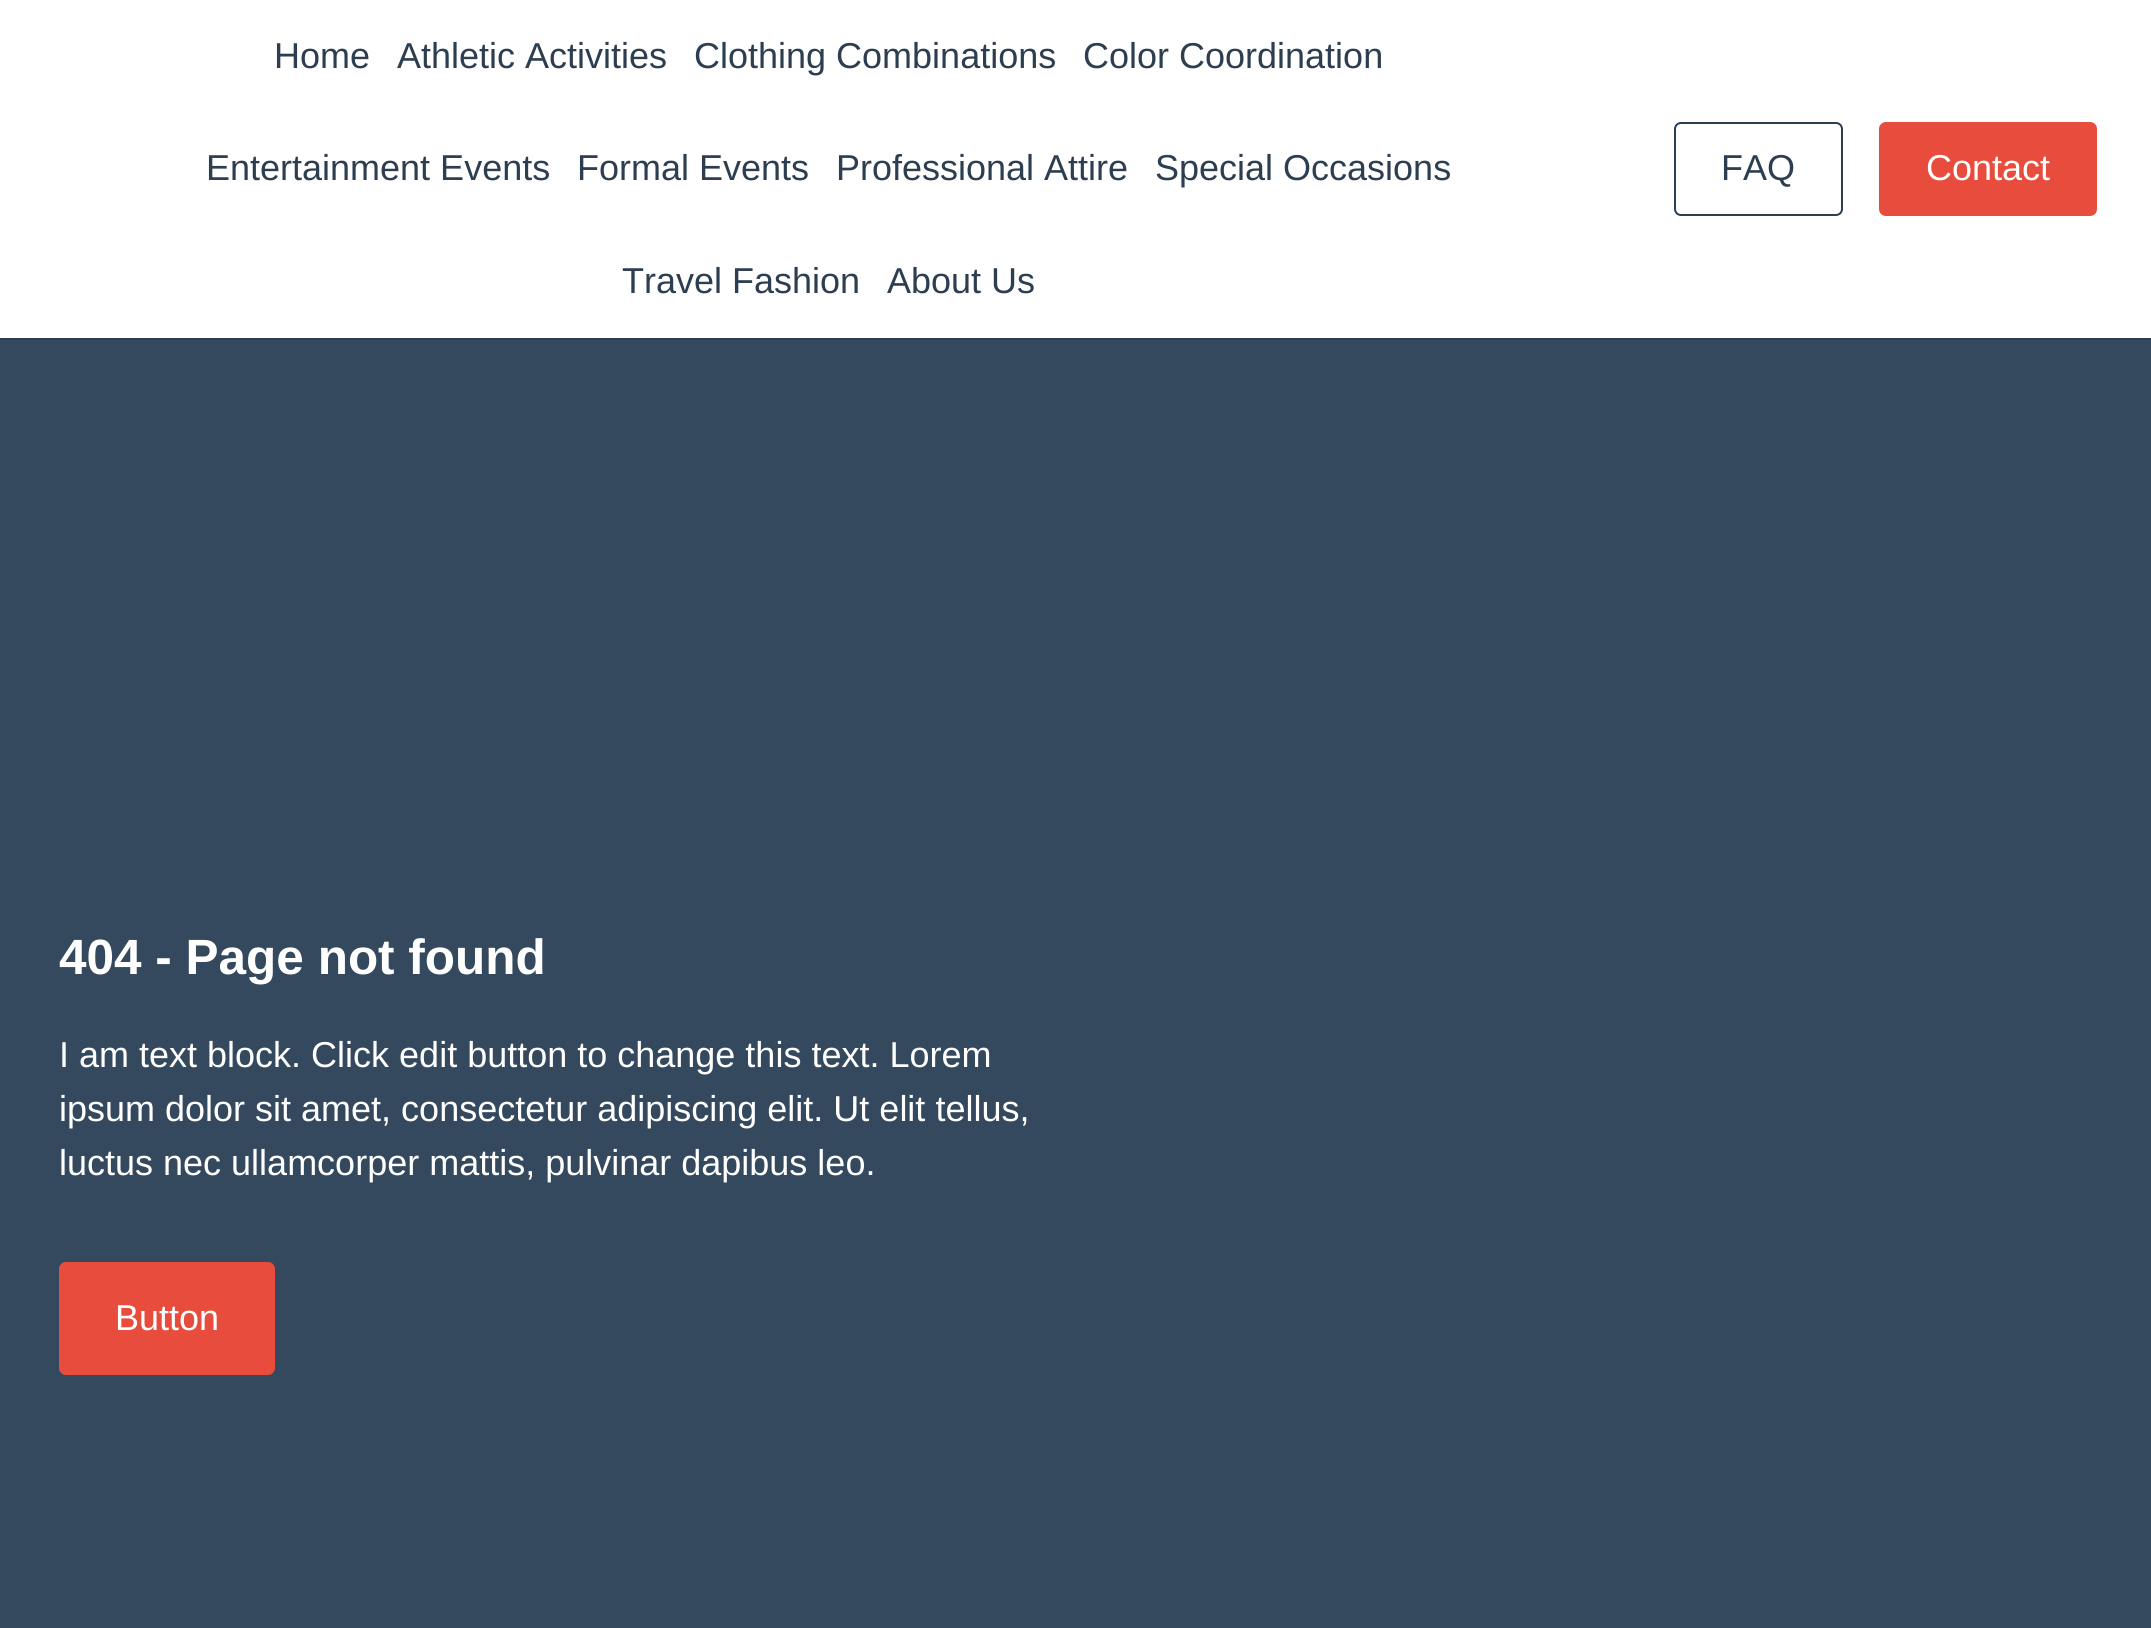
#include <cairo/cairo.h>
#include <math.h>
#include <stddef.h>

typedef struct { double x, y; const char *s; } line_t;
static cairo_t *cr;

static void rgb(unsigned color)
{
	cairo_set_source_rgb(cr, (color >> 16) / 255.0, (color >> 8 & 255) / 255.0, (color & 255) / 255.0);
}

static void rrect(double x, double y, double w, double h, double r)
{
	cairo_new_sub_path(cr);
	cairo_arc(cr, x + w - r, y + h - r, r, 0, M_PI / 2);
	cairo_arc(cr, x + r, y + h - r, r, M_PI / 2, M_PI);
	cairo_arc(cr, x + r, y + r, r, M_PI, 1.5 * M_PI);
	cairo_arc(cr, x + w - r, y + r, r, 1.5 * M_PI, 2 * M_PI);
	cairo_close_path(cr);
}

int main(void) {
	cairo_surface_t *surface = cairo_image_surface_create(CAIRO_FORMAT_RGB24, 2151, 1628);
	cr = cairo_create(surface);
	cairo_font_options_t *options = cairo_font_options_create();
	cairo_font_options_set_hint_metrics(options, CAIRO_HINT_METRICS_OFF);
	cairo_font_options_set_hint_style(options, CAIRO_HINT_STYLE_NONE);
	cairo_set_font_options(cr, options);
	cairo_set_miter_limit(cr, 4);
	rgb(0xffffff);
	cairo_paint(cr);
	rgb(0x2c3e50);
	cairo_rectangle(cr, 0, 338, 2151, 2);
	cairo_fill(cr);
	rrect(1675, 123, 167, 92, 6);
	cairo_stroke(cr);
	rgb(0xe74c3c);
	rrect(1880, 123, 216, 92, 6);
	cairo_fill_preserve(cr);
	cairo_stroke(cr);
	rgb(0x34495e);
	cairo_rectangle(cr, 0, 340, 2151, 1288);
	cairo_fill(cr);
	rgb(0xe74c3c);
	rrect(60, 1263, 214, 111, 6);
	cairo_fill_preserve(cr);
	cairo_stroke(cr);
	cairo_select_font_face(cr, "Liberation Sans", CAIRO_FONT_SLANT_NORMAL, CAIRO_FONT_WEIGHT_NORMAL);
	cairo_set_font_size(cr, 36);
	rgb(0x2c3e50);
	{
		static const line_t items[] = {
			{274, 68, "Home"},
			{397, 68, "Athletic Activities"},
			{694, 68, "Clothing Combinations"},
			{1083, 68, "Color Coordination"},
			{206, 180, "Entertainment Events"},
			{577, 180, "Formal Events"},
			{836, 180, "Professional Attire"},
			{1155, 180, "Special Occasions"},
			{622, 293, "Travel Fashion"},
			{887, 293, "About Us"},
			{1721, 180, "FAQ"},
		};
		for (size_t i = 0; i < sizeof items / sizeof *items; i++) {
			cairo_move_to(cr, items[i].x, items[i].y);
			cairo_show_text(cr, items[i].s);
		}
	}
	rgb(0xffffff);
	cairo_move_to(cr, 1926, 180);
	cairo_show_text(cr, "Contact");
	cairo_select_font_face(cr, "Liberation Sans", CAIRO_FONT_SLANT_NORMAL, CAIRO_FONT_WEIGHT_BOLD);
	cairo_set_font_size(cr, 49.5);
	cairo_move_to(cr, 59, 974);
	cairo_show_text(cr, "404 - Page not found");
	cairo_select_font_face(cr, "Liberation Sans", CAIRO_FONT_SLANT_NORMAL, CAIRO_FONT_WEIGHT_NORMAL);
	cairo_set_font_size(cr, 36);
	{
		static const line_t items[] = {
			{59, 1067, "I am text block. Click edit button to change this text. Lorem"},
			{59, 1121, "ipsum dolor sit amet, consectetur adipiscing elit. Ut elit tellus,"},
			{59, 1175, "luctus nec ullamcorper mattis, pulvinar dapibus leo."},
			{115, 1330, "Button"},
		};
		for (size_t i = 0; i < sizeof items / sizeof *items; i++) {
			cairo_move_to(cr, items[i].x, items[i].y);
			cairo_show_text(cr, items[i].s);
		}
	}
	cairo_surface_write_to_png(surface, "page.png");
	cairo_font_options_destroy(options);
	cairo_destroy(cr);
	cairo_surface_destroy(surface);
	return 0;
}
